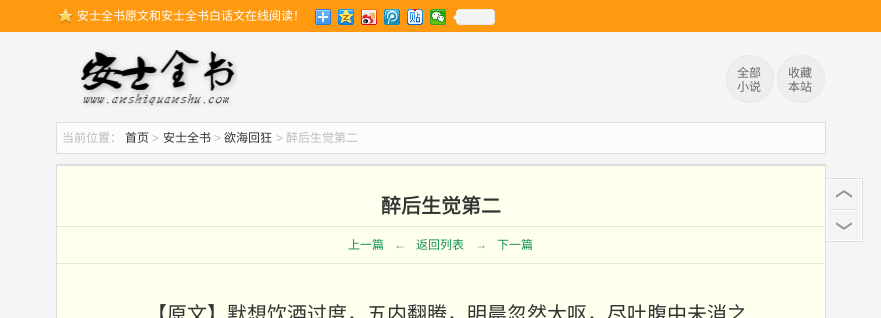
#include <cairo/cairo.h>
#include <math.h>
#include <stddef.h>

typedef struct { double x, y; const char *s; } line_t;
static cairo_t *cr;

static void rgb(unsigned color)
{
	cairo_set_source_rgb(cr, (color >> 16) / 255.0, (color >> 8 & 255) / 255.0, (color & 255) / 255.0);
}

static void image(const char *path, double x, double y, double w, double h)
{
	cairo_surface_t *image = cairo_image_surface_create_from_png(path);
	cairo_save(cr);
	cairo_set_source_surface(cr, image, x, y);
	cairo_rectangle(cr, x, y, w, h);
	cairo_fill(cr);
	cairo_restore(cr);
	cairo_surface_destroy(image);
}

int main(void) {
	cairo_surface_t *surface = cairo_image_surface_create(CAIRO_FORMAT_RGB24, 881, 318);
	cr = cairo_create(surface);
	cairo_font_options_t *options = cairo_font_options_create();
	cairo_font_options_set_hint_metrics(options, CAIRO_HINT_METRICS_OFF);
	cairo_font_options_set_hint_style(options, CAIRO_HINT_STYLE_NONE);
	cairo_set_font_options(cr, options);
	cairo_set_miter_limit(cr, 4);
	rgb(0xf5f5f5);
	cairo_paint(cr);
	rgb(0xff9a10);
	cairo_rectangle(cr, 0, 0, 881, 32);
	cairo_fill(cr);
	image("img/1.png", 58, 8, 15, 15);
	image("img/2.png", 315, 9, 16, 16);
	image("img/3.png", 338, 9, 16, 16);
	image("img/4.png", 361, 9, 16, 16);
	image("img/5.png", 384, 9, 16, 16);
	image("img/6.png", 407, 9, 16, 16);
	image("img/7.png", 430, 9, 16, 16);
	image("img/8.png", 453, 9, 42, 16);
	image("img/9.png", 80, 50, 158, 57);
	rgb(0xeeeeee);
	cairo_arc(cr, 750, 79, 23.5, 0, 2 * M_PI);
	cairo_fill_preserve(cr);
	rgb(0xe7e7e7);
	cairo_set_line_width(cr, 1);
	cairo_stroke(cr);
	rgb(0xeeeeee);
	cairo_arc(cr, 801, 79, 23.5, 0, 2 * M_PI);
	cairo_fill_preserve(cr);
	rgb(0xe7e7e7);
	cairo_stroke(cr);
	rgb(0xfcfcfc);
	cairo_rectangle(cr, 56.5, 122.5, 769, 31);
	cairo_fill_preserve(cr);
	rgb(0xdddddd);
	cairo_stroke(cr);
	cairo_rectangle(cr, 56.5, 164.5, 769, 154);
	cairo_stroke(cr);
	cairo_rectangle(cr, 57, 165, 768, 1);
	cairo_fill(cr);
	rgb(0xffffed);
	cairo_rectangle(cr, 57, 166, 768, 152);
	cairo_fill(cr);
	cairo_new_path(cr);
	cairo_move_to(cr, 57, 226.5);
	cairo_line_to(cr, 825, 226.5);
	rgb(0xcccccc);
	cairo_set_dash(cr, (double[]){1, 1}, 2, 0);
	cairo_stroke(cr);
	cairo_new_path(cr);
	cairo_move_to(cr, 57, 263.5);
	cairo_line_to(cr, 825, 263.5);
	cairo_stroke(cr);
	rgb(0xffffff);
	cairo_rectangle(cr, 826, 179, 36, 62);
	cairo_fill(cr);
	image("img/10.png", 827, 180, 34, 60);
	cairo_rectangle(cr, 825.5, 178.5, 37, 63);
	rgb(0xdddddd);
	cairo_set_dash(cr, NULL, 0, 0);
	cairo_stroke(cr);
	cairo_select_font_face(cr, "Noto Sans CJK SC", CAIRO_FONT_SLANT_NORMAL, CAIRO_FONT_WEIGHT_NORMAL);
	cairo_set_font_size(cr, 12);
	rgb(0xffffff);
	cairo_move_to(cr, 77, 20);
	cairo_show_text(cr, "安士全书原文和安士全书白话文在线阅读！");
	rgb(0x666666);
	{
		static const line_t items[] = {
			{737, 77, "全部"},
			{737, 91, "小说"},
			{788, 77, "收藏"},
			{788, 91, "本站"},
		};
		for (size_t i = 0; i < sizeof items / sizeof *items; i++) {
			cairo_move_to(cr, items[i].x, items[i].y);
			cairo_show_text(cr, items[i].s);
		}
	}
	rgb(0xbbbbbb);
	cairo_move_to(cr, 62, 142);
	cairo_show_text(cr, "当前位置：");
	rgb(0x333333);
	cairo_move_to(cr, 125, 142);
	cairo_show_text(cr, "首页");
	cairo_select_font_face(cr, "Liberation Sans", CAIRO_FONT_SLANT_NORMAL, CAIRO_FONT_WEIGHT_NORMAL);
	rgb(0xbbbbbb);
	cairo_move_to(cr, 152, 142);
	cairo_show_text(cr, ">");
	cairo_select_font_face(cr, "Noto Sans CJK SC", CAIRO_FONT_SLANT_NORMAL, CAIRO_FONT_WEIGHT_NORMAL);
	rgb(0x333333);
	cairo_move_to(cr, 163, 142);
	cairo_show_text(cr, "安士全书");
	cairo_select_font_face(cr, "Liberation Sans", CAIRO_FONT_SLANT_NORMAL, CAIRO_FONT_WEIGHT_NORMAL);
	rgb(0xbbbbbb);
	cairo_move_to(cr, 214, 142);
	cairo_show_text(cr, ">");
	cairo_select_font_face(cr, "Noto Sans CJK SC", CAIRO_FONT_SLANT_NORMAL, CAIRO_FONT_WEIGHT_NORMAL);
	rgb(0x333333);
	cairo_move_to(cr, 224, 142);
	cairo_show_text(cr, "欲海回狂");
	cairo_select_font_face(cr, "Liberation Sans", CAIRO_FONT_SLANT_NORMAL, CAIRO_FONT_WEIGHT_NORMAL);
	rgb(0xbbbbbb);
	cairo_move_to(cr, 276, 142);
	cairo_show_text(cr, ">");
	cairo_select_font_face(cr, "Noto Sans CJK SC", CAIRO_FONT_SLANT_NORMAL, CAIRO_FONT_WEIGHT_NORMAL);
	cairo_move_to(cr, 286, 142);
	cairo_show_text(cr, "醉后生觉第二");
	cairo_select_font_face(cr, "Noto Sans CJK SC", CAIRO_FONT_SLANT_NORMAL, CAIRO_FONT_WEIGHT_BOLD);
	cairo_set_font_size(cr, 20);
	rgb(0x333333);
	cairo_move_to(cr, 381, 213);
	cairo_show_text(cr, "醉后生觉第二");
	cairo_select_font_face(cr, "Noto Sans CJK SC", CAIRO_FONT_SLANT_NORMAL, CAIRO_FONT_WEIGHT_NORMAL);
	cairo_set_font_size(cr, 12);
	rgb(0x129151);
	cairo_move_to(cr, 348, 249);
	cairo_show_text(cr, "上一篇");
	cairo_select_font_face(cr, "Liberation Sans", CAIRO_FONT_SLANT_NORMAL, CAIRO_FONT_WEIGHT_NORMAL);
	rgb(0x808080);
	cairo_move_to(cr, 394, 249);
	cairo_show_text(cr, "←");
	cairo_select_font_face(cr, "Noto Sans CJK SC", CAIRO_FONT_SLANT_NORMAL, CAIRO_FONT_WEIGHT_NORMAL);
	rgb(0x129151);
	cairo_move_to(cr, 416, 249);
	cairo_show_text(cr, "返回列表");
	cairo_select_font_face(cr, "Liberation Sans", CAIRO_FONT_SLANT_NORMAL, CAIRO_FONT_WEIGHT_NORMAL);
	rgb(0x808080);
	cairo_move_to(cr, 475, 249);
	cairo_show_text(cr, "→");
	cairo_select_font_face(cr, "Noto Sans CJK SC", CAIRO_FONT_SLANT_NORMAL, CAIRO_FONT_WEIGHT_NORMAL);
	rgb(0x129151);
	cairo_move_to(cr, 497, 249);
	cairo_show_text(cr, "下一篇");
	cairo_set_font_size(cr, 20);
	rgb(0x333333);
	cairo_move_to(cr, 147, 321);
	cairo_show_text(cr, "【原文】默想饮酒过度，五内翻腾，明晨忽然大呕，尽吐腹中未消之");
	cairo_surface_write_to_png(surface, "page.png");
	cairo_font_options_destroy(options);
	cairo_destroy(cr);
	cairo_surface_destroy(surface);
	return 0;
}
